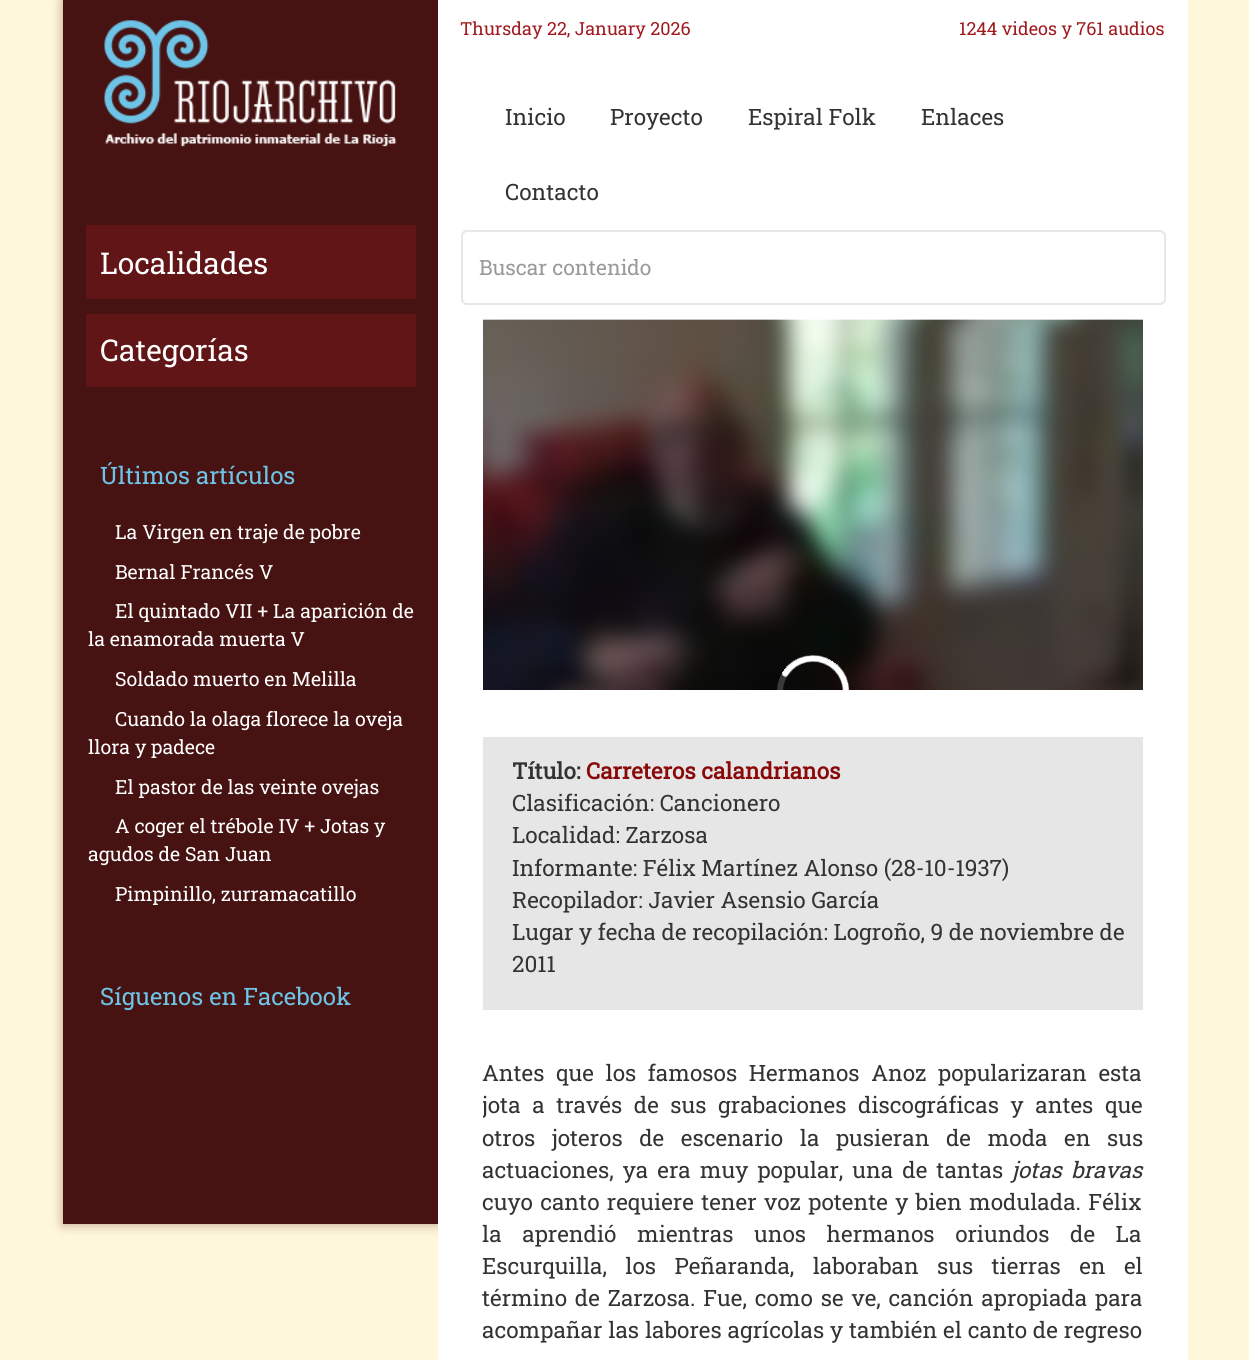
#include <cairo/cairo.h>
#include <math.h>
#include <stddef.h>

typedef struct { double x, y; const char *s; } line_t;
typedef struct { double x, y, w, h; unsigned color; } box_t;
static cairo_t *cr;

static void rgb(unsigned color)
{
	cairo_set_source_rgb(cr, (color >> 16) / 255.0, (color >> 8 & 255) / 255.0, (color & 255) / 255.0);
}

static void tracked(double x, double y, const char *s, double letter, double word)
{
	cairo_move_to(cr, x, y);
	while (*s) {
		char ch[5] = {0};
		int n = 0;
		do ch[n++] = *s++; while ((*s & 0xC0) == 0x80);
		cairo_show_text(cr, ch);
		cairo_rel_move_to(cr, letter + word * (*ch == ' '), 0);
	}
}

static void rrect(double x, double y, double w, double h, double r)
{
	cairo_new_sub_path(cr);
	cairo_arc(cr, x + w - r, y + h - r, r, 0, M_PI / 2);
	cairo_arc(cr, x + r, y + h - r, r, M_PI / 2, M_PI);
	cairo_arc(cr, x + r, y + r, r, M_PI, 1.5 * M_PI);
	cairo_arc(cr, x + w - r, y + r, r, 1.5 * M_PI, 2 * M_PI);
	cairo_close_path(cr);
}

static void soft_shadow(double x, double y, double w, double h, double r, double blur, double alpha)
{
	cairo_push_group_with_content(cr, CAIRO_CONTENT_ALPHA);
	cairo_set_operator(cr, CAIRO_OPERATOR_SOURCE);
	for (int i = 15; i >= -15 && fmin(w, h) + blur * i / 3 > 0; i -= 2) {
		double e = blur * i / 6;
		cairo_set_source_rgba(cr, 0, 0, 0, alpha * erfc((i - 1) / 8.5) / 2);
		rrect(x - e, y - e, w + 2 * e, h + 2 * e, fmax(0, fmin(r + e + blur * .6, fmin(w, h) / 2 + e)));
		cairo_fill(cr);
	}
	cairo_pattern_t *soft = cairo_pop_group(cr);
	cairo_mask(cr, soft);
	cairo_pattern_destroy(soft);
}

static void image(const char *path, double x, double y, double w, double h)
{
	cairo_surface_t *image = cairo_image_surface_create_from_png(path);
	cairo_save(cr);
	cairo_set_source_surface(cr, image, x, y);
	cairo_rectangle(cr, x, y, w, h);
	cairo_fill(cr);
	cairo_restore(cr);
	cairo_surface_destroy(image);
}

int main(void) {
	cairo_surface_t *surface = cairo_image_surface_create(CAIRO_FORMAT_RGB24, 1249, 1360);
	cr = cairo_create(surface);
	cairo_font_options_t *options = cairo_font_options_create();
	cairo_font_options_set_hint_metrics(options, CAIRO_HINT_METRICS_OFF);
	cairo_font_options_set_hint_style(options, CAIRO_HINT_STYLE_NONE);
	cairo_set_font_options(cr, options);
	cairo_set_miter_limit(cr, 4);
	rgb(0xfff8dc);
	cairo_paint(cr);
	rgb(0x510c0f);
	soft_shadow(63, 0, 375, 1224, 0, 6, 0.4);
	rgb(0x471312);
	cairo_rectangle(cr, 63, 0, 375, 1224);
	cairo_fill(cr);
	image("img/1.png", 104, 20, 293, 127);
	{
		static const box_t items[] = {
			{86, 225, 330, 74, 0x621516},
			{86, 314, 330, 73, 0x621516},
			{438, 0, 750, 1360, 0xffffff},
		};
		for (size_t i = 0; i < sizeof items / sizeof *items; i++) {
			rgb(items[i].color);
			cairo_rectangle(cr, items[i].x, items[i].y, items[i].w, items[i].h);
			cairo_fill(cr);
		}
	}
	rgb(0xececec);
	cairo_new_path(cr);
	cairo_move_to(cr, 466, 232);
	cairo_line_to(cr, 1160, 232);
	cairo_curve_to(cr, 1162, 232, 1164, 235, 1164, 237);
	cairo_line_to(cr, 1164, 236);
	cairo_curve_to(cr, 1164, 233, 1162, 231, 1159, 231);
	cairo_line_to(cr, 467, 231);
	cairo_curve_to(cr, 464, 231, 462, 233, 462, 236);
	cairo_line_to(cr, 462, 237);
	cairo_curve_to(cr, 462, 235, 464, 232, 466, 232);
	cairo_close_path(cr);
	cairo_fill(cr);
	rrect(462, 231, 703, 73, 5);
	rgb(0xe7e7e7);
	cairo_stroke(cr);
	image("img/2.png", 483, 319, 660, 371);
	rgb(0xe6e6e6);
	cairo_rectangle(cr, 483, 737, 660, 273);
	cairo_fill(cr);
	cairo_select_font_face(cr, "Roboto Slab", CAIRO_FONT_SLANT_NORMAL, CAIRO_FONT_WEIGHT_NORMAL);
	cairo_set_font_size(cr, 30);
	rgb(0xffffff);
	cairo_move_to(cr, 100, 274);
	cairo_show_text(cr, "Localidades");
	cairo_move_to(cr, 100, 361);
	cairo_show_text(cr, "Categorías");
	cairo_set_font_size(cr, 24);
	rgb(0x6dc4e6);
	cairo_move_to(cr, 100, 484);
	cairo_show_text(cr, "Últimos artículos");
	cairo_set_font_size(cr, 19.5);
	rgb(0xffffff);
	{
		static const line_t items[] = {
			{115, 539, "La Virgen en traje de pobre"},
			{115, 579, "Bernal Francés V"},
			{115, 618, "El quintado VII + La aparición de"},
			{88, 646, "la enamorada muerta V"},
			{115, 686, "Soldado muerto en Melilla"},
			{115, 726, "Cuando la olaga florece la oveja"},
			{88, 754, "llora y padece"},
			{115, 794, "El pastor de las veinte ovejas"},
			{115, 833, "A coger el trébole IV + Jotas y"},
			{88, 861, "agudos de San Juan"},
			{115, 901, "Pimpinillo, zurramacatillo"},
		};
		for (size_t i = 0; i < sizeof items / sizeof *items; i++) {
			cairo_move_to(cr, items[i].x, items[i].y);
			cairo_show_text(cr, items[i].s);
		}
	}
	cairo_set_font_size(cr, 24);
	rgb(0x6dc4e6);
	cairo_move_to(cr, 100, 1005);
	cairo_show_text(cr, "Síguenos en Facebook");
	cairo_set_font_size(cr, 18);
	rgb(0xa01b20);
	cairo_move_to(cr, 460, 35);
	cairo_show_text(cr, "Thursday 22, January 2026");
	cairo_move_to(cr, 959, 35);
	cairo_show_text(cr, "1244 videos y 761 audios");
	cairo_set_font_size(cr, 22.5);
	rgb(0x333333);
	{
		static const line_t items[] = {
			{505, 125, "Inicio"},
			{610, 125, "Proyecto"},
			{748, 125, "Espiral Folk"},
			{921, 125, "Enlaces"},
			{505, 200, "Contacto"},
		};
		for (size_t i = 0; i < sizeof items / sizeof *items; i++) {
			cairo_move_to(cr, items[i].x, items[i].y);
			cairo_show_text(cr, items[i].s);
		}
	}
	cairo_set_font_size(cr, 21);
	rgb(0x999999);
	cairo_move_to(cr, 479, 275);
	cairo_show_text(cr, "Buscar contenido");
	cairo_select_font_face(cr, "Roboto Slab", CAIRO_FONT_SLANT_NORMAL, CAIRO_FONT_WEIGHT_BOLD);
	cairo_set_font_size(cr, 22.5);
	rgb(0x333333);
	cairo_move_to(cr, 512, 779);
	cairo_show_text(cr, "Título:");
	rgb(0x8a0808);
	cairo_move_to(cr, 586, 779);
	cairo_show_text(cr, "Carreteros calandrianos");
	cairo_select_font_face(cr, "Roboto Slab", CAIRO_FONT_SLANT_NORMAL, CAIRO_FONT_WEIGHT_NORMAL);
	rgb(0x333333);
	{
		static const line_t items[] = {
			{512, 811, "Clasificación: Cancionero"},
			{512, 843, "Localidad: Zarzosa"},
			{512, 876, "Informante: Félix Martínez Alonso (28-10-1937)"},
			{512, 908, "Recopilador: Javier Asensio García"},
			{512, 940, "Lugar y fecha de recopilación: Logroño, 9 de noviembre de"},
			{512, 972, "2011"},
		};
		for (size_t i = 0; i < sizeof items / sizeof *items; i++) {
			cairo_move_to(cr, items[i].x, items[i].y);
			cairo_show_text(cr, items[i].s);
		}
	}
	tracked(482, 1081, "Antes que los famosos Hermanos Anoz popularizaran esta", 0, 6);
	cairo_save(cr);
	cairo_rectangle(cr, 483, 320, 660, 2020);
	cairo_clip(cr);
	tracked(482, 1113, "jota a través de sus grabaciones discográficas y antes que", 0, 6);
	cairo_restore(cr);
	tracked(482, 1146, "otros joteros de escenario la pusieran de moda en sus", 0, 11);
	tracked(482, 1178, "actuaciones, ya era muy popular, una de tantas", 0, 3.5);
	cairo_select_font_face(cr, "Roboto Slab", CAIRO_FONT_SLANT_ITALIC, CAIRO_FONT_WEIGHT_NORMAL);
	tracked(1012, 1178, "jotas bravas", 0, 3.5);
	cairo_select_font_face(cr, "Roboto Slab", CAIRO_FONT_SLANT_NORMAL, CAIRO_FONT_WEIGHT_NORMAL);
	tracked(482, 1210, "cuyo canto requiere tener voz potente y bien modulada. Félix", 0, 1.75);
	tracked(482, 1242, "la aprendió mientras unos hermanos oriundos de La", 0, 15);
	tracked(482, 1274, "Escurquilla, los Peñaranda, laboraban sus tierras en el", 0, 12.75);
	tracked(482, 1306, "término de Zarzosa. Fue, como se ve, canción apropiada para", 0, 2.25);
	tracked(482, 1338, "acompañar las labores agrícolas y también el canto de regreso", 0, 0.25);
	cairo_surface_write_to_png(surface, "page.png");
	cairo_font_options_destroy(options);
	cairo_destroy(cr);
	cairo_surface_destroy(surface);
	return 0;
}
